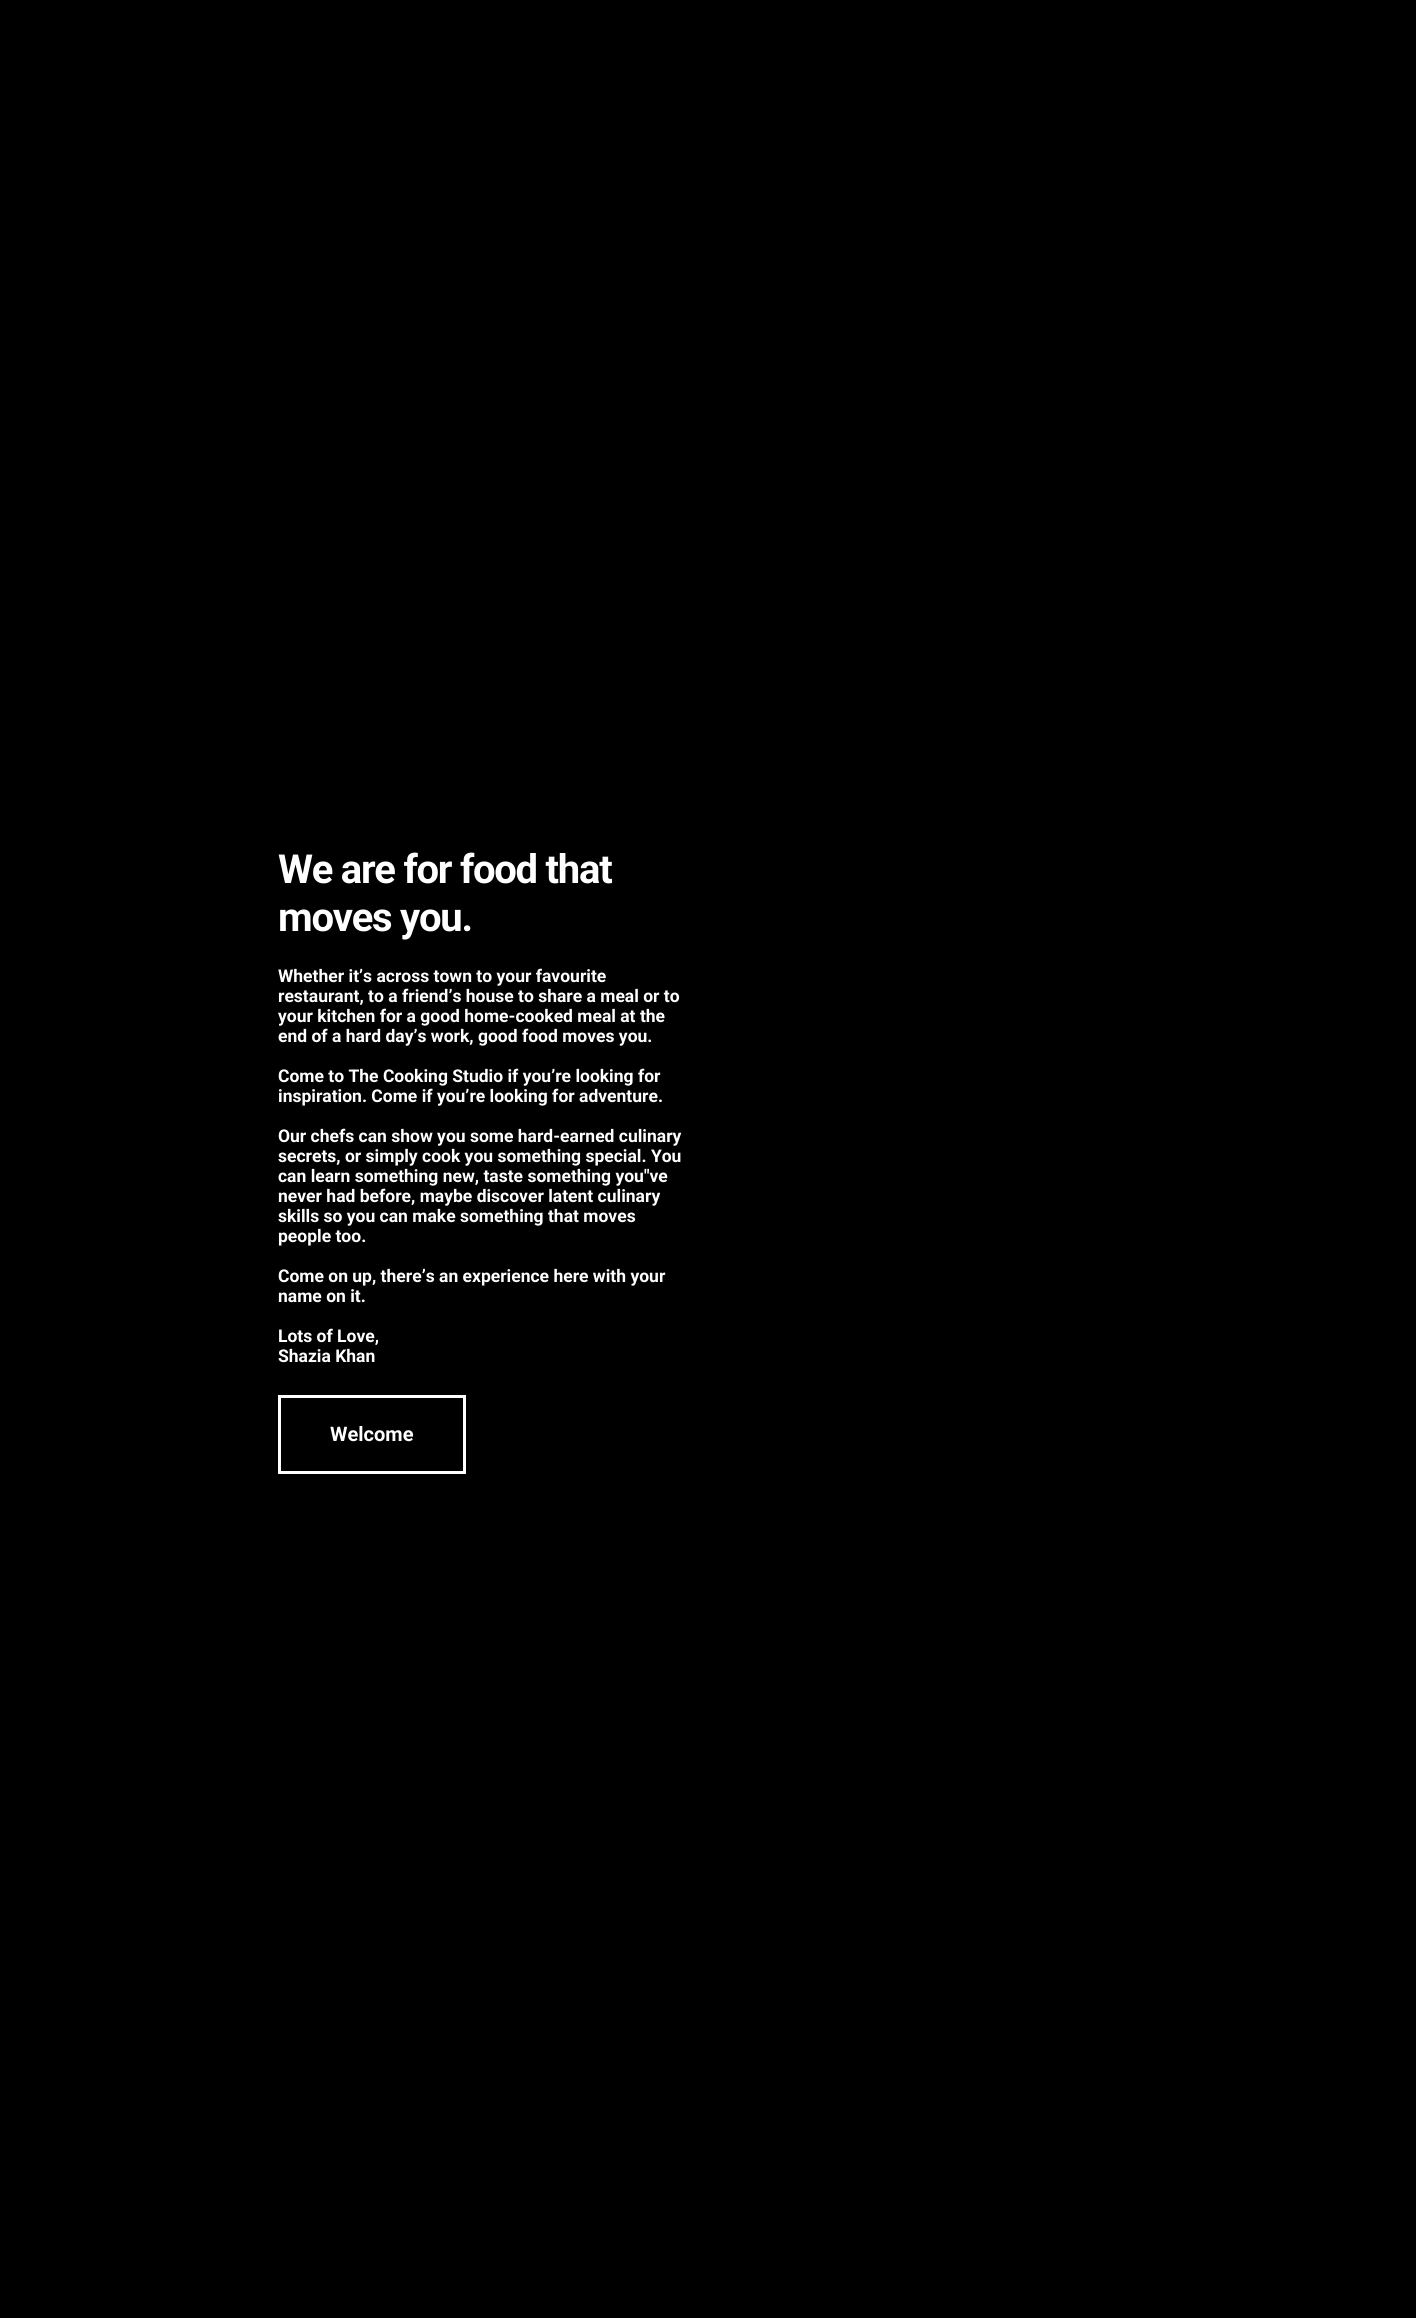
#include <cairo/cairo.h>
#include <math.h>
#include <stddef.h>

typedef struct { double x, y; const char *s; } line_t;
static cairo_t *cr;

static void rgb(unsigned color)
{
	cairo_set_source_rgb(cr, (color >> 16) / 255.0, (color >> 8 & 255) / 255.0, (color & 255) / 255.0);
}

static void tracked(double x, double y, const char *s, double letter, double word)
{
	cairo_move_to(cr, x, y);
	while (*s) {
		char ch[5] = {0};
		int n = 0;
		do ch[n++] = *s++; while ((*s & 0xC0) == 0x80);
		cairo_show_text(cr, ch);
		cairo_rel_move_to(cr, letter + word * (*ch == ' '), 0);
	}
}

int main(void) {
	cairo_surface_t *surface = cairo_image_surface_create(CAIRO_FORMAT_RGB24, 1416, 2318);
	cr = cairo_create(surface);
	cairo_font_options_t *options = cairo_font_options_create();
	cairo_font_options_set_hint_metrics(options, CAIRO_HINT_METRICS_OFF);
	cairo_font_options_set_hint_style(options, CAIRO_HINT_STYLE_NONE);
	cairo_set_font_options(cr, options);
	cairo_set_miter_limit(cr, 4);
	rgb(0x000000);
	cairo_paint(cr);
	cairo_rectangle(cr, 279.5, 1396.5, 185, 76);
	rgb(0xffffff);
	cairo_set_line_width(cr, 3);
	cairo_stroke(cr);
	cairo_select_font_face(cr, "Roboto", CAIRO_FONT_SLANT_NORMAL, CAIRO_FONT_WEIGHT_BOLD);
	cairo_set_font_size(cr, 40);
	tracked(278, 883, "We are for food that", -1.25, 0);
	tracked(278, 931, "moves you.", -1.25, 0);
	cairo_set_font_size(cr, 17.5);
	{
		static const line_t items[] = {
			{278, 982, "Whether it’s across town to your favourite"},
			{278, 1002, "restaurant, to a friend’s house to share a meal or to"},
			{278, 1022, "your kitchen for a good home-cooked meal at the"},
			{278, 1042, "end of a hard day’s work, good food moves you."},
			{278, 1082, "Come to The Cooking Studio if you’re looking for"},
			{278, 1102, "inspiration. Come if you’re looking for adventure."},
			{278, 1142, "Our chefs can show you some hard-earned culinary"},
			{278, 1162, "secrets, or simply cook you something special. You"},
			{278, 1182, "can learn something new, taste something you\"ve"},
			{278, 1202, "never had before, maybe discover latent culinary"},
			{278, 1222, "skills so you can make something that moves"},
			{278, 1242, "people too."},
			{278, 1282, "Come on up, there’s an experience here with your"},
			{278, 1302, "name on it."},
			{278, 1342, "Lots of Love,"},
			{278, 1362, "Shazia Khan"},
		};
		for (size_t i = 0; i < sizeof items / sizeof *items; i++) {
			cairo_move_to(cr, items[i].x, items[i].y);
			cairo_show_text(cr, items[i].s);
		}
	}
	cairo_set_font_size(cr, 20);
	cairo_move_to(cr, 330, 1441);
	cairo_show_text(cr, "Welcome");
	cairo_surface_write_to_png(surface, "page.png");
	cairo_font_options_destroy(options);
	cairo_destroy(cr);
	cairo_surface_destroy(surface);
	return 0;
}
